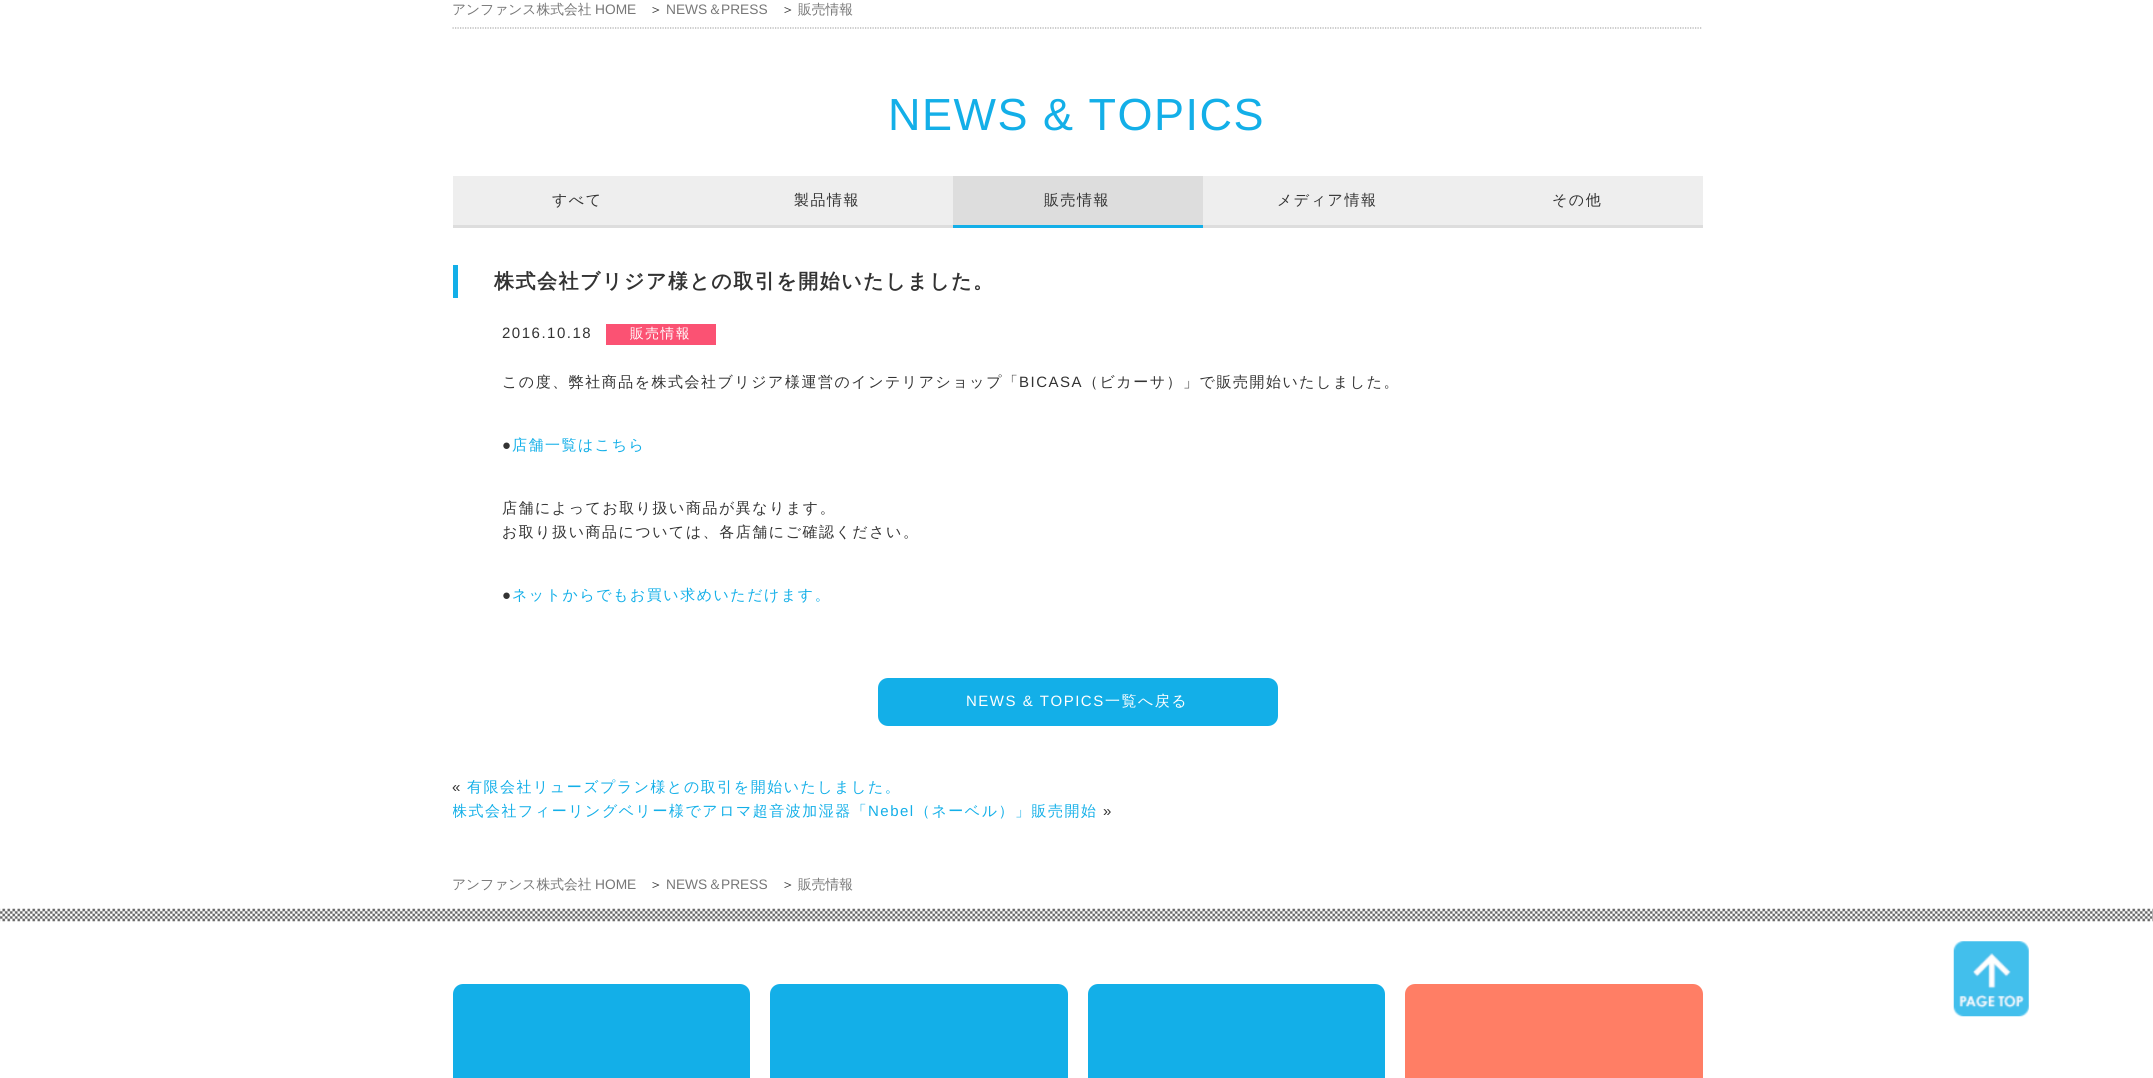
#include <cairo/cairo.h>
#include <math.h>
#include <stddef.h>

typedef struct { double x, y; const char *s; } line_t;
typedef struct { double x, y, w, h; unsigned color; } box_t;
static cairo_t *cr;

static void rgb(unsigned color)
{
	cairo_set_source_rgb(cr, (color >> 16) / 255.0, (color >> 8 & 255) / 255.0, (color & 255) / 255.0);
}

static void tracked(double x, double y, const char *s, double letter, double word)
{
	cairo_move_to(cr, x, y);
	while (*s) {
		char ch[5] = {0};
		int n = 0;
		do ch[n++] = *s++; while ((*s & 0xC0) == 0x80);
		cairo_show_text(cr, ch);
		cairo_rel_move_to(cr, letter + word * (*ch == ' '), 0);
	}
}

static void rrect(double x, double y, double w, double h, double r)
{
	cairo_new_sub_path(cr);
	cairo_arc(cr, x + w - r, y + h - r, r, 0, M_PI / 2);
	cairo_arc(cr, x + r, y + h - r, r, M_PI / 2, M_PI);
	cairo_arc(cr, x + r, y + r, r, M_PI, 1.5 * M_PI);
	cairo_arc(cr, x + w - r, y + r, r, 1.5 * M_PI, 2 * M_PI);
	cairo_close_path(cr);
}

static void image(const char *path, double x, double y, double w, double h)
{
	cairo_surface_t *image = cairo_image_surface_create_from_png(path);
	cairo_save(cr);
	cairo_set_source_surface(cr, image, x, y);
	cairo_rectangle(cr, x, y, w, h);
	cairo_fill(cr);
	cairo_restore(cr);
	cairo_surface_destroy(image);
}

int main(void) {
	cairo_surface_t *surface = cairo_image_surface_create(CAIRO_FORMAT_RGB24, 2153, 1078);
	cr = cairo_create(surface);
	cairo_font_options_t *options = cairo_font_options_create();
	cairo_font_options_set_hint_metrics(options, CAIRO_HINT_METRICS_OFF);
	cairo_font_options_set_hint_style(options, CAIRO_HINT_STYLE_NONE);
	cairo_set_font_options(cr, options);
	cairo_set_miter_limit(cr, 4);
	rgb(0xffffff);
	cairo_paint(cr);
	cairo_new_path(cr);
	cairo_move_to(cr, 452.5, 28);
	cairo_line_to(cr, 1702.5, 28);
	rgb(0xaaaaaa);
	cairo_set_line_width(cr, 1.2);
	cairo_set_dash(cr, (double[]){1.25, 1.25}, 2, 0);
	cairo_stroke(cr);
	{
		static const box_t items[] = {
			{453, 176, 500, 49, 0xeeeeee},
			{453, 225, 500, 3, 0xdddddd},
			{953, 176, 250, 49, 0xdddddd},
			{953, 225, 250, 3, 0x13afe8},
			{1203, 176, 500, 49, 0xeeeeee},
			{1203, 225, 500, 3, 0xdddddd},
			{453, 265, 5, 33, 0x13afe8},
			{606, 324, 110, 21, 0xfb5273},
		};
		for (size_t i = 0; i < sizeof items / sizeof *items; i++) {
			rgb(items[i].color);
			cairo_rectangle(cr, items[i].x, items[i].y, items[i].w, items[i].h);
			cairo_fill(cr);
		}
	}
	rgb(0x13afe8);
	rrect(878, 678, 400, 48, 10);
	cairo_fill(cr);
	image("img/1.png", 0, 908, 2153, 14);
	rrect(453, 984, 297, 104, 10);
	cairo_fill(cr);
	rrect(770, 984, 298, 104, 10);
	cairo_fill(cr);
	rrect(1088, 984, 297, 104, 10);
	cairo_fill(cr);
	rgb(0xff7e65);
	rrect(1405, 984, 298, 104, 10);
	cairo_fill(cr);
	image("img/2.png", 1953, 941, 76, 76);
	cairo_select_font_face(cr, "WenQuanYi Zen Hei Medium", CAIRO_FONT_SLANT_NORMAL, CAIRO_FONT_WEIGHT_NORMAL);
	cairo_set_font_size(cr, 13.75);
	rgb(0x777777);
	cairo_move_to(cr, 452, 14);
	cairo_show_text(cr, "アンファンス株式会社");
	cairo_select_font_face(cr, "Liberation Sans", CAIRO_FONT_SLANT_NORMAL, CAIRO_FONT_WEIGHT_NORMAL);
	cairo_move_to(cr, 595, 14);
	cairo_show_text(cr, "HOME");
	cairo_select_font_face(cr, "WenQuanYi Zen Hei Medium", CAIRO_FONT_SLANT_NORMAL, CAIRO_FONT_WEIGHT_NORMAL);
	rgb(0x333333);
	cairo_move_to(cr, 649, 14);
	cairo_show_text(cr, "＞");
	cairo_select_font_face(cr, "Liberation Sans", CAIRO_FONT_SLANT_NORMAL, CAIRO_FONT_WEIGHT_NORMAL);
	rgb(0x777777);
	cairo_move_to(cr, 666, 14);
	cairo_show_text(cr, "NEWS");
	cairo_select_font_face(cr, "WenQuanYi Zen Hei Medium", CAIRO_FONT_SLANT_NORMAL, CAIRO_FONT_WEIGHT_NORMAL);
	cairo_move_to(cr, 708, 14);
	cairo_show_text(cr, "＆");
	cairo_select_font_face(cr, "Liberation Sans", CAIRO_FONT_SLANT_NORMAL, CAIRO_FONT_WEIGHT_NORMAL);
	cairo_move_to(cr, 721, 14);
	cairo_show_text(cr, "PRESS");
	cairo_select_font_face(cr, "WenQuanYi Zen Hei Medium", CAIRO_FONT_SLANT_NORMAL, CAIRO_FONT_WEIGHT_NORMAL);
	rgb(0x333333);
	cairo_move_to(cr, 781, 14);
	cairo_show_text(cr, "＞");
	rgb(0x777777);
	cairo_move_to(cr, 798, 14);
	cairo_show_text(cr, "販売情報");
	cairo_select_font_face(cr, "Liberation Sans", CAIRO_FONT_SLANT_NORMAL, CAIRO_FONT_WEIGHT_NORMAL);
	cairo_set_font_size(cr, 45);
	rgb(0x13afe8);
	tracked(888, 130, "NEWS & TOPICS", 1.5, 0);
	cairo_select_font_face(cr, "WenQuanYi Zen Hei Medium", CAIRO_FONT_SLANT_NORMAL, CAIRO_FONT_WEIGHT_NORMAL);
	cairo_set_font_size(cr, 15);
	rgb(0x333333);
	{
		static const line_t items[] = {
			{552, 205, "すべて"},
			{794, 205, "製品情報"},
			{1044, 205, "販売情報"},
			{1277, 205, "メディア情報"},
			{1552, 205, "その他"},
		};
		for (size_t i = 0; i < sizeof items / sizeof *items; i++) {
			tracked(items[i].x, items[i].y, items[i].s, 1.5, 0);
		}
	}
	cairo_select_font_face(cr, "WenQuanYi Zen Hei", CAIRO_FONT_SLANT_NORMAL, CAIRO_FONT_WEIGHT_BOLD);
	cairo_set_font_size(cr, 20);
	tracked(494, 288, "株式会社ブリジア様との取引を開始いたしました。", 1.5, 0);
	cairo_select_font_face(cr, "Liberation Sans", CAIRO_FONT_SLANT_NORMAL, CAIRO_FONT_WEIGHT_NORMAL);
	cairo_set_font_size(cr, 15);
	tracked(502, 338, "2016.10.18", 1.5, 0);
	cairo_select_font_face(cr, "WenQuanYi Zen Hei Medium", CAIRO_FONT_SLANT_NORMAL, CAIRO_FONT_WEIGHT_NORMAL);
	cairo_set_font_size(cr, 13.75);
	rgb(0xffffff);
	tracked(630, 338, "販売情報", 1.5, 0);
	cairo_set_font_size(cr, 15);
	rgb(0x333333);
	tracked(502, 387, "この度、弊社商品を株式会社ブリジア様運営のインテリアショップ「", 1.5, 0);
	cairo_select_font_face(cr, "Liberation Sans", CAIRO_FONT_SLANT_NORMAL, CAIRO_FONT_WEIGHT_NORMAL);
	tracked(1019, 387, "BICASA", 1.5, 0);
	cairo_select_font_face(cr, "WenQuanYi Zen Hei Medium", CAIRO_FONT_SLANT_NORMAL, CAIRO_FONT_WEIGHT_NORMAL);
	tracked(1083, 387, "（ビカーサ）」で販売開始いたしました。", 1.5, 0);
	cairo_select_font_face(cr, "Liberation Sans", CAIRO_FONT_SLANT_NORMAL, CAIRO_FONT_WEIGHT_NORMAL);
	tracked(502, 450, "●", 1.5, 0);
	cairo_select_font_face(cr, "WenQuanYi Zen Hei Medium", CAIRO_FONT_SLANT_NORMAL, CAIRO_FONT_WEIGHT_NORMAL);
	rgb(0x13afe8);
	tracked(512, 450, "店舗一覧はこちら", 1.5, 0);
	rgb(0x333333);
	tracked(502, 513, "店舗によってお取り扱い商品が異なります。", 1.5, 0);
	tracked(502, 537, "お取り扱い商品については、各店舗にご確認ください。", 1.5, 0);
	cairo_select_font_face(cr, "Liberation Sans", CAIRO_FONT_SLANT_NORMAL, CAIRO_FONT_WEIGHT_NORMAL);
	tracked(502, 600, "●", 1.5, 0);
	cairo_select_font_face(cr, "WenQuanYi Zen Hei Medium", CAIRO_FONT_SLANT_NORMAL, CAIRO_FONT_WEIGHT_NORMAL);
	rgb(0x13afe8);
	tracked(512, 600, "ネットからでもお買い求めいただけます。", 1.5, 0);
	cairo_select_font_face(cr, "Liberation Sans", CAIRO_FONT_SLANT_NORMAL, CAIRO_FONT_WEIGHT_NORMAL);
	rgb(0xffffff);
	tracked(966, 706, "NEWS & TOPICS", 1.5, 0);
	cairo_select_font_face(cr, "WenQuanYi Zen Hei Medium", CAIRO_FONT_SLANT_NORMAL, CAIRO_FONT_WEIGHT_NORMAL);
	tracked(1105, 706, "一覧へ戻る", 1.5, 0);
	cairo_select_font_face(cr, "Liberation Sans", CAIRO_FONT_SLANT_NORMAL, CAIRO_FONT_WEIGHT_NORMAL);
	rgb(0x333333);
	tracked(452, 792, "«", 1.5, 0);
	cairo_select_font_face(cr, "WenQuanYi Zen Hei Medium", CAIRO_FONT_SLANT_NORMAL, CAIRO_FONT_WEIGHT_NORMAL);
	rgb(0x13afe8);
	tracked(467, 792, "有限会社リューズプラン様との取引を開始いたしました。", 1.5, 0);
	cairo_save(cr);
	cairo_rectangle(cr, 453, 0, 1250, 824);
	cairo_clip(cr);
	tracked(452, 816, "株式会社フィーリングベリー様でアロマ超音波加湿器「", 1.5, 0);
	cairo_restore(cr);
	cairo_select_font_face(cr, "Liberation Sans", CAIRO_FONT_SLANT_NORMAL, CAIRO_FONT_WEIGHT_NORMAL);
	tracked(868, 816, "Nebel", 1.5, 0);
	cairo_select_font_face(cr, "WenQuanYi Zen Hei Medium", CAIRO_FONT_SLANT_NORMAL, CAIRO_FONT_WEIGHT_NORMAL);
	tracked(915, 816, "（ネーベル）」販売開始", 1.5, 0);
	cairo_select_font_face(cr, "Liberation Sans", CAIRO_FONT_SLANT_NORMAL, CAIRO_FONT_WEIGHT_NORMAL);
	rgb(0x333333);
	tracked(1103, 816, "»", 1.5, 0);
	cairo_select_font_face(cr, "WenQuanYi Zen Hei Medium", CAIRO_FONT_SLANT_NORMAL, CAIRO_FONT_WEIGHT_NORMAL);
	cairo_set_font_size(cr, 13.75);
	rgb(0x777777);
	cairo_move_to(cr, 452, 889);
	cairo_show_text(cr, "アンファンス株式会社");
	cairo_select_font_face(cr, "Liberation Sans", CAIRO_FONT_SLANT_NORMAL, CAIRO_FONT_WEIGHT_NORMAL);
	cairo_move_to(cr, 595, 889);
	cairo_show_text(cr, "HOME");
	cairo_select_font_face(cr, "WenQuanYi Zen Hei Medium", CAIRO_FONT_SLANT_NORMAL, CAIRO_FONT_WEIGHT_NORMAL);
	rgb(0x333333);
	cairo_move_to(cr, 649, 889);
	cairo_show_text(cr, "＞");
	cairo_select_font_face(cr, "Liberation Sans", CAIRO_FONT_SLANT_NORMAL, CAIRO_FONT_WEIGHT_NORMAL);
	rgb(0x777777);
	cairo_move_to(cr, 666, 889);
	cairo_show_text(cr, "NEWS");
	cairo_select_font_face(cr, "WenQuanYi Zen Hei Medium", CAIRO_FONT_SLANT_NORMAL, CAIRO_FONT_WEIGHT_NORMAL);
	cairo_move_to(cr, 708, 889);
	cairo_show_text(cr, "＆");
	cairo_select_font_face(cr, "Liberation Sans", CAIRO_FONT_SLANT_NORMAL, CAIRO_FONT_WEIGHT_NORMAL);
	cairo_move_to(cr, 721, 889);
	cairo_show_text(cr, "PRESS");
	cairo_select_font_face(cr, "WenQuanYi Zen Hei Medium", CAIRO_FONT_SLANT_NORMAL, CAIRO_FONT_WEIGHT_NORMAL);
	rgb(0x333333);
	cairo_move_to(cr, 781, 889);
	cairo_show_text(cr, "＞");
	rgb(0x777777);
	cairo_move_to(cr, 798, 889);
	cairo_show_text(cr, "販売情報");
	cairo_surface_write_to_png(surface, "page.png");
	cairo_font_options_destroy(options);
	cairo_destroy(cr);
	cairo_surface_destroy(surface);
	return 0;
}
